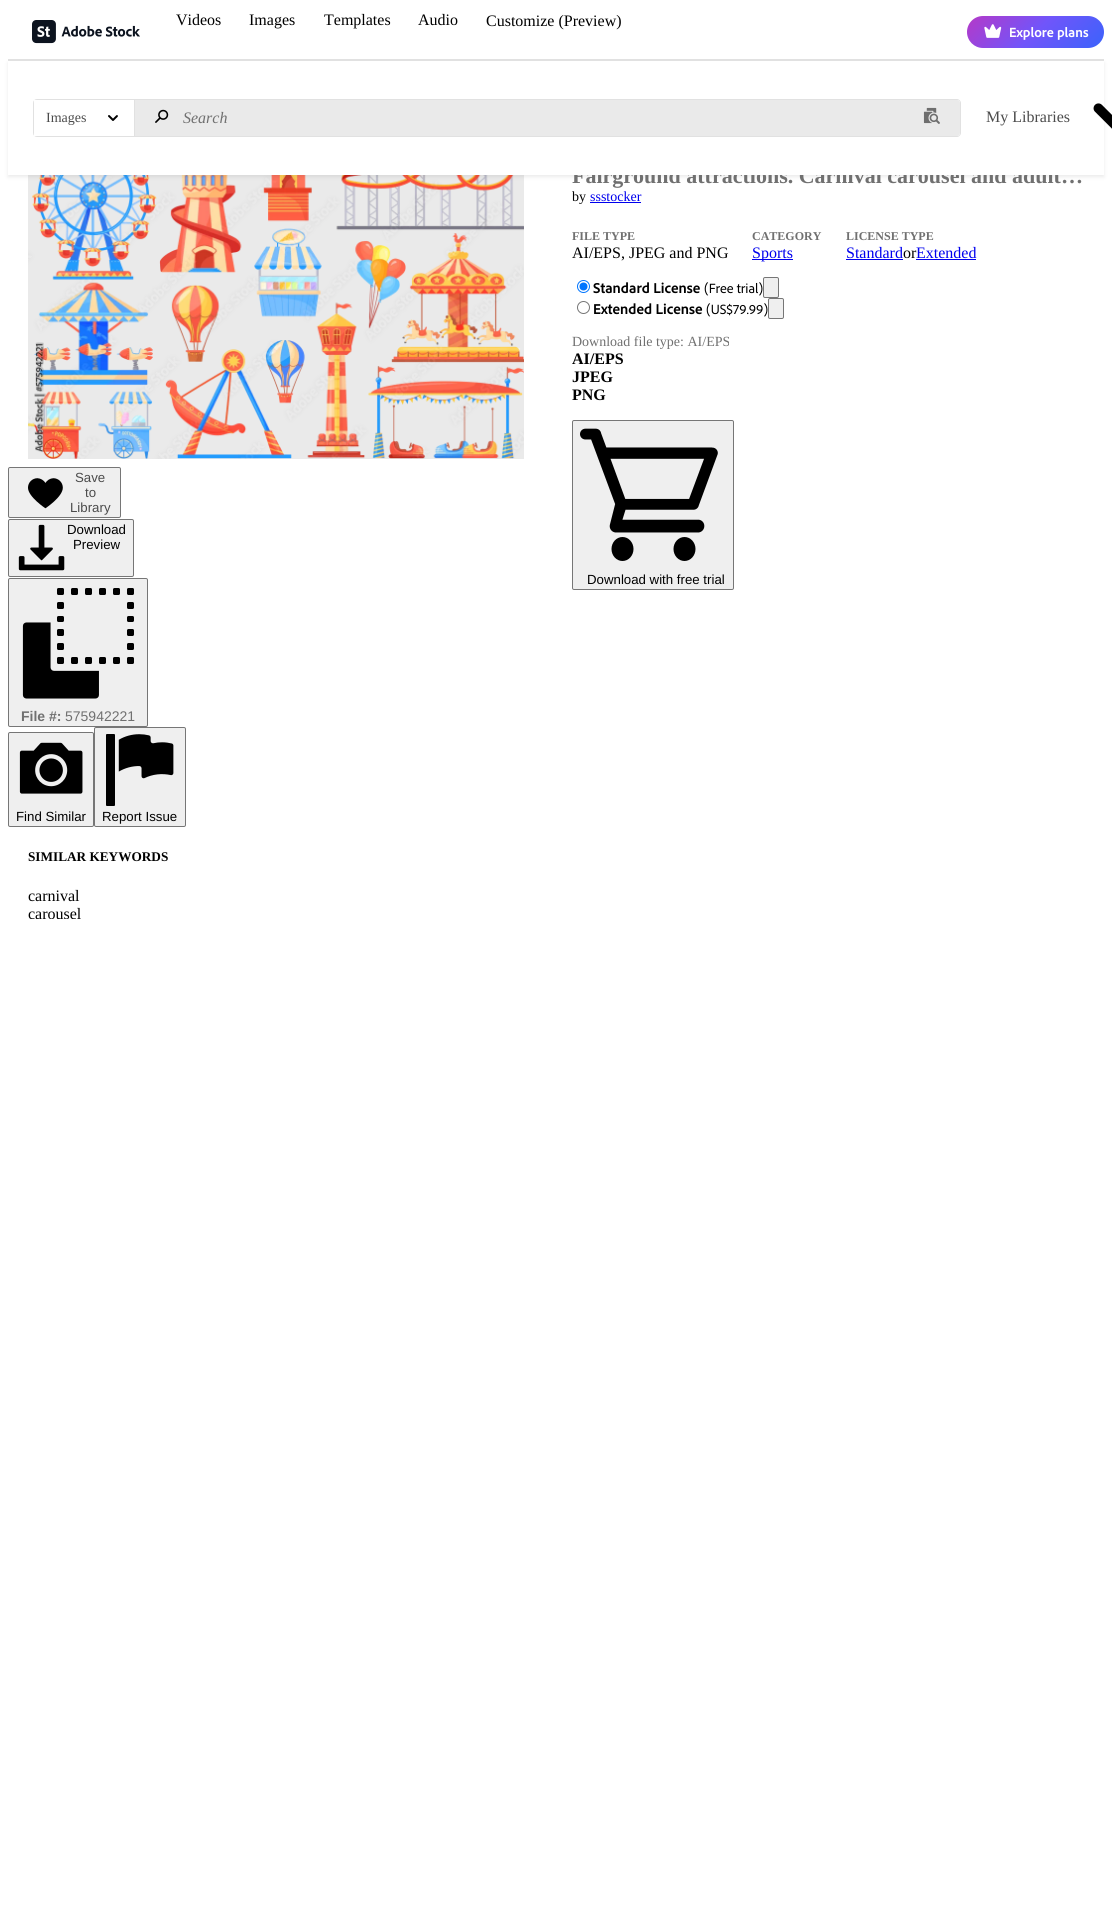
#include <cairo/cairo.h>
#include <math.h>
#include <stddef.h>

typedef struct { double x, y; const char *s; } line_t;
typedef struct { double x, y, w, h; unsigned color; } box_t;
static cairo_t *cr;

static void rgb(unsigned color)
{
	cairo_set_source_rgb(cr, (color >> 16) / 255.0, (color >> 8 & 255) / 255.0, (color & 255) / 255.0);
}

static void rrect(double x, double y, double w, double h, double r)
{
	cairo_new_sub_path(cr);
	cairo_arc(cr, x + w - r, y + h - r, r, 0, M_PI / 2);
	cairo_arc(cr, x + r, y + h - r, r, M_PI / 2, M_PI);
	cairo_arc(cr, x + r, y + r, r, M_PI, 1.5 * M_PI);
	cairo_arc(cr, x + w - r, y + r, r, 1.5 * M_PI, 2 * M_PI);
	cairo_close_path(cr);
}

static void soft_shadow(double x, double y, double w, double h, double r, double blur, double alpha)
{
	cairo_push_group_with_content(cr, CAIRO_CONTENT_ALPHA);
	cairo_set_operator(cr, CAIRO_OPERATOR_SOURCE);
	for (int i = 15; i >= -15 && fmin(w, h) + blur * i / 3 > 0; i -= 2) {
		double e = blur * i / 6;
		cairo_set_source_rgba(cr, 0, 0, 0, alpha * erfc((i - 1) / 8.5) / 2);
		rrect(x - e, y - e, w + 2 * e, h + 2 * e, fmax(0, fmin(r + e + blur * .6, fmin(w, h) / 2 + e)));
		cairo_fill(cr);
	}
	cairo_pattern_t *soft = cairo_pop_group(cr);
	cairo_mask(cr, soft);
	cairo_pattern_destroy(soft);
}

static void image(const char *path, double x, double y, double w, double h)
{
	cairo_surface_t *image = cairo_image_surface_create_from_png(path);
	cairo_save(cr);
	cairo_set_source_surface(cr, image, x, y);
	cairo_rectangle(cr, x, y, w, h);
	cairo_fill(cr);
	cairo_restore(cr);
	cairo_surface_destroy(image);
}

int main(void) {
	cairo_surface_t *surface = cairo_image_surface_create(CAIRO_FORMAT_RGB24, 1112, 1932);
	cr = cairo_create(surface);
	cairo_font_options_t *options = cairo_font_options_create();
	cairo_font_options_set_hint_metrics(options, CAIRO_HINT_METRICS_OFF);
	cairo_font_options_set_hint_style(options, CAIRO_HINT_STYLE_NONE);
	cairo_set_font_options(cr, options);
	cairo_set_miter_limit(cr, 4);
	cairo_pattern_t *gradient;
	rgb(0xffffff);
	cairo_paint(cr);
	rgb(0xeaeaea);
	cairo_rectangle(cr, 28, 175, 496, 284);
	cairo_fill(cr);
	image("img/8.png", 28, 175, 496, 284);
	rgb(0x343434);
	soft_shadow(8, 63, 1096, 114, 0, 2, 0.1);
	rgb(0xe1e1e1);
	cairo_rectangle(cr, 8, 59, 1096, 2);
	cairo_fill(cr);
	image("img/1.png", 32, 20, 108, 24);
	gradient = cairo_pattern_create_linear(993, -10, 1078, 74);
	cairo_pattern_add_color_stop_rgba(gradient, 0, 0.71, 0.224, 0.784, 1);
	cairo_pattern_add_color_stop_rgba(gradient, 0.5, 0.443, 0.333, 0.98, 1);
	cairo_pattern_add_color_stop_rgba(gradient, 1, 0.231, 0.388, 0.984, 1);
	cairo_set_source(cr, gradient);
	cairo_pattern_destroy(gradient);
	rrect(967, 16, 137, 32, 16);
	cairo_fill(cr);
	image("img/2.png", 984, 24, 18, 14);
	{
		static const box_t items[] = {
			{590, 202, 51, 1, 0x0000ee},
			{752, 259, 41, 1, 0x0000ee},
			{846, 259, 57, 1, 0x0000ee},
			{916, 259, 60, 1, 0x0000ee},
		};
		for (size_t i = 0; i < sizeof items / sizeof *items; i++) {
			rgb(items[i].color);
			cairo_rectangle(cr, items[i].x, items[i].y, items[i].w, items[i].h);
			cairo_fill(cr);
		}
	}
	cairo_arc(cr, 583.5, 286.5, 6, 0, 2 * M_PI);
	rgb(0x0075ff);
	cairo_set_line_width(cr, 1);
	cairo_stroke(cr);
	cairo_arc(cr, 583.5, 286.5, 4, 0, 2 * M_PI);
	cairo_fill(cr);
	rgb(0xefefef);
	rrect(763.5, 277.5, 15, 20, 1.5);
	cairo_fill_preserve(cr);
	rgb(0x767676);
	cairo_stroke(cr);
	cairo_arc(cr, 583.5, 307.5, 6, 0, 2 * M_PI);
	cairo_stroke(cr);
	rgb(0xefefef);
	rrect(768.5, 298.5, 15, 20, 1.5);
	cairo_fill_preserve(cr);
	rgb(0x767676);
	cairo_stroke(cr);
	rgb(0xefefef);
	rrect(572.5, 420.5, 161, 169, 1.5);
	cairo_fill_preserve(cr);
	rgb(0x767676);
	cairo_stroke(cr);
	image("img/7.png", 580, 428, 138, 133);
	rgb(0xefefef);
	rrect(8.5, 467.5, 112, 50, 1.5);
	cairo_fill_preserve(cr);
	rgb(0x767676);
	cairo_stroke(cr);
	image("img/9.png", 28, 478, 35, 31);
	rgb(0xefefef);
	rrect(8.5, 519.5, 125, 57, 1.5);
	cairo_fill_preserve(cr);
	rgb(0x767676);
	cairo_stroke(cr);
	image("img/10.png", 18, 524, 47, 47);
	rgb(0xefefef);
	rrect(8.5, 578.5, 139, 148, 1.5);
	cairo_fill_preserve(cr);
	rgb(0x767676);
	cairo_stroke(cr);
	image("img/11.png", 22, 588, 112, 111);
	rgb(0xefefef);
	rrect(8.5, 732.5, 85, 94, 1.5);
	cairo_fill_preserve(cr);
	rgb(0x767676);
	cairo_stroke(cr);
	image("img/12.png", 19, 742, 64, 52);
	rgb(0xefefef);
	rrect(94.5, 727.5, 91, 99, 1.5);
	cairo_fill_preserve(cr);
	rgb(0x767676);
	cairo_stroke(cr);
	image("img/13.png", 106, 734, 68, 72);
	cairo_select_font_face(cr, "Liberation Serif", CAIRO_FONT_SLANT_NORMAL, CAIRO_FONT_WEIGHT_NORMAL);
	cairo_set_font_size(cr, 16);
	rgb(0x000000);
	{
		static const line_t items[] = {
			{176, 25, "Videos"},
			{249, 25, "Images"},
			{324, 25, "Templates"},
			{418, 25, "Audio"},
			{486, 26, "Customize (Preview)"},
		};
		for (size_t i = 0; i < sizeof items / sizeof *items; i++) {
			cairo_move_to(cr, items[i].x, items[i].y);
			cairo_show_text(cr, items[i].s);
		}
	}
	cairo_select_font_face(cr, "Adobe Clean", CAIRO_FONT_SLANT_NORMAL, CAIRO_FONT_WEIGHT_BOLD);
	cairo_set_font_size(cr, 14);
	rgb(0xffffff);
	cairo_move_to(cr, 1009, 37);
	cairo_show_text(cr, "Explore plans");
	cairo_select_font_face(cr, "Liberation Serif", CAIRO_FONT_SLANT_NORMAL, CAIRO_FONT_WEIGHT_BOLD);
	cairo_set_font_size(cr, 22);
	rgb(0x707070);
	cairo_move_to(cr, 572, 183);
	cairo_show_text(cr, "Fairground attractions. Carnival carousel and adult…");
	rgb(0xffffff);
	cairo_rectangle(cr, 8, 61, 1096, 114);
	cairo_fill(cr);
	image("img/6.png", 1093, 103, 19, 26);
	cairo_select_font_face(cr, "Liberation Serif", CAIRO_FONT_SLANT_NORMAL, CAIRO_FONT_WEIGHT_NORMAL);
	cairo_set_font_size(cr, 16);
	rgb(0x4b4b4b);
	cairo_move_to(cr, 986, 122);
	cairo_show_text(cr, "My Libraries");
	rgb(0xeaeaea);
	cairo_new_path(cr);
	cairo_move_to(cr, 135, 100);
	cairo_line_to(cr, 957, 100);
	cairo_curve_to(cr, 958.5, 100, 960, 101.5, 960, 103);
	cairo_line_to(cr, 960, 133);
	cairo_curve_to(cr, 960, 134.5, 958.5, 136, 957, 136);
	cairo_line_to(cr, 135, 136);
	cairo_close_path(cr);
	cairo_fill(cr);
	rgb(0xe1e1e1);
	cairo_set_fill_rule(cr, CAIRO_FILL_RULE_EVEN_ODD);
	cairo_new_path(cr);
	cairo_move_to(cr, 135, 99);
	cairo_line_to(cr, 957, 99);
	cairo_curve_to(cr, 959, 99, 961, 101, 961, 103);
	cairo_line_to(cr, 961, 133);
	cairo_curve_to(cr, 961, 135, 959, 137, 957, 137);
	cairo_line_to(cr, 135, 137);
	cairo_close_path(cr);
	cairo_move_to(cr, 135, 100);
	cairo_line_to(cr, 957, 100);
	cairo_curve_to(cr, 959, 100, 960, 101, 960, 103);
	cairo_line_to(cr, 960, 133);
	cairo_curve_to(cr, 960, 135, 959, 136, 957, 136);
	cairo_line_to(cr, 135, 136);
	cairo_close_path(cr);
	cairo_fill(cr);
	image("img/5.png", 923, 107, 17, 17);
	image("img/4.png", 155, 109, 14, 14);
	cairo_select_font_face(cr, "Liberation Serif", CAIRO_FONT_SLANT_ITALIC, CAIRO_FONT_WEIGHT_NORMAL);
	rgb(0x707070);
	cairo_move_to(cr, 183, 123);
	cairo_show_text(cr, "Search");
	cairo_new_path(cr);
	cairo_move_to(cr, 37, 99.5);
	cairo_line_to(cr, 134.5, 99.5);
	cairo_line_to(cr, 134.5, 136.5);
	cairo_line_to(cr, 37, 136.5);
	cairo_curve_to(cr, 35, 136.5, 33.5, 135, 33.5, 133);
	cairo_line_to(cr, 33.5, 103);
	cairo_curve_to(cr, 33.5, 101, 35, 99.5, 37, 99.5);
	cairo_close_path(cr);
	rgb(0xe1e1e1);
	cairo_stroke(cr);
	image("img/3.png", 108, 115, 10, 6);
	cairo_select_font_face(cr, "Liberation Serif", CAIRO_FONT_SLANT_NORMAL, CAIRO_FONT_WEIGHT_NORMAL);
	cairo_set_font_size(cr, 14);
	rgb(0x4b4b4b);
	cairo_move_to(cr, 46, 122);
	cairo_show_text(cr, "Images");
	rgb(0xffffff);
	cairo_rectangle(cr, 34, 100, 3, 36);
	cairo_fill(cr);
	rgb(0x000000);
	cairo_move_to(cr, 572, 201);
	cairo_show_text(cr, "by");
	rgb(0x0000ee);
	cairo_move_to(cr, 590, 201);
	cairo_show_text(cr, "ssstocker");
	cairo_select_font_face(cr, "Liberation Serif", CAIRO_FONT_SLANT_NORMAL, CAIRO_FONT_WEIGHT_BOLD);
	cairo_set_font_size(cr, 12);
	rgb(0x707070);
	cairo_move_to(cr, 572, 240);
	cairo_show_text(cr, "FILE TYPE");
	cairo_select_font_face(cr, "Liberation Serif", CAIRO_FONT_SLANT_NORMAL, CAIRO_FONT_WEIGHT_NORMAL);
	cairo_set_font_size(cr, 16);
	rgb(0x000000);
	cairo_move_to(cr, 572, 258);
	cairo_show_text(cr, "AI/EPS, JPEG and PNG");
	cairo_select_font_face(cr, "Liberation Serif", CAIRO_FONT_SLANT_NORMAL, CAIRO_FONT_WEIGHT_BOLD);
	cairo_set_font_size(cr, 12);
	rgb(0x707070);
	cairo_move_to(cr, 752, 240);
	cairo_show_text(cr, "CATEGORY");
	cairo_select_font_face(cr, "Liberation Serif", CAIRO_FONT_SLANT_NORMAL, CAIRO_FONT_WEIGHT_NORMAL);
	cairo_set_font_size(cr, 16);
	rgb(0x0000ee);
	cairo_move_to(cr, 752, 258);
	cairo_show_text(cr, "Sports");
	cairo_select_font_face(cr, "Liberation Serif", CAIRO_FONT_SLANT_NORMAL, CAIRO_FONT_WEIGHT_BOLD);
	cairo_set_font_size(cr, 12);
	rgb(0x707070);
	cairo_move_to(cr, 846, 240);
	cairo_show_text(cr, "LICENSE TYPE");
	cairo_select_font_face(cr, "Liberation Serif", CAIRO_FONT_SLANT_NORMAL, CAIRO_FONT_WEIGHT_NORMAL);
	cairo_set_font_size(cr, 16);
	rgb(0x0000ee);
	cairo_move_to(cr, 846, 258);
	cairo_show_text(cr, "Standard");
	rgb(0x000000);
	cairo_move_to(cr, 903, 258);
	cairo_show_text(cr, "or");
	rgb(0x0000ee);
	cairo_move_to(cr, 916, 258);
	cairo_show_text(cr, "Extended");
	cairo_select_font_face(cr, "Adobe Clean", CAIRO_FONT_SLANT_NORMAL, CAIRO_FONT_WEIGHT_BOLD);
	cairo_set_font_size(cr, 15);
	rgb(0x000000);
	cairo_move_to(cr, 593, 293);
	cairo_show_text(cr, "Standard License");
	cairo_select_font_face(cr, "Adobe Clean", CAIRO_FONT_SLANT_NORMAL, CAIRO_FONT_WEIGHT_NORMAL);
	cairo_set_font_size(cr, 14);
	cairo_move_to(cr, 704, 293);
	cairo_show_text(cr, "(Free trial)");
	cairo_select_font_face(cr, "Adobe Clean", CAIRO_FONT_SLANT_NORMAL, CAIRO_FONT_WEIGHT_BOLD);
	cairo_set_font_size(cr, 15);
	cairo_move_to(cr, 593, 314);
	cairo_show_text(cr, "Extended License");
	cairo_select_font_face(cr, "Adobe Clean", CAIRO_FONT_SLANT_NORMAL, CAIRO_FONT_WEIGHT_NORMAL);
	cairo_set_font_size(cr, 14);
	cairo_move_to(cr, 706, 314);
	cairo_show_text(cr, "(US$79.99)");
	cairo_select_font_face(cr, "Liberation Serif", CAIRO_FONT_SLANT_NORMAL, CAIRO_FONT_WEIGHT_NORMAL);
	rgb(0x707070);
	cairo_move_to(cr, 572, 346);
	cairo_show_text(cr, "Download file type: AI/EPS");
	cairo_select_font_face(cr, "Liberation Serif", CAIRO_FONT_SLANT_NORMAL, CAIRO_FONT_WEIGHT_BOLD);
	cairo_set_font_size(cr, 16);
	rgb(0x000000);
	{
		static const line_t items[] = {
			{572, 364, "AI/EPS"},
			{572, 382, "JPEG"},
			{572, 400, "PNG"},
		};
		for (size_t i = 0; i < sizeof items / sizeof *items; i++) {
			cairo_move_to(cr, items[i].x, items[i].y);
			cairo_show_text(cr, items[i].s);
		}
	}
	cairo_select_font_face(cr, "Liberation Sans", CAIRO_FONT_SLANT_NORMAL, CAIRO_FONT_WEIGHT_NORMAL);
	cairo_set_font_size(cr, 13.25);
	cairo_move_to(cr, 587, 584);
	cairo_show_text(cr, "Download with free trial");
	rgb(0x4b4b4b);
	{
		static const line_t items[] = {
			{75, 482, "Save"},
			{85, 497, "to"},
			{70, 512, "Library"},
		};
		for (size_t i = 0; i < sizeof items / sizeof *items; i++) {
			cairo_move_to(cr, items[i].x, items[i].y);
			cairo_show_text(cr, items[i].s);
		}
	}
	rgb(0x000000);
	cairo_move_to(cr, 67, 534);
	cairo_show_text(cr, "Download");
	cairo_move_to(cr, 73, 549);
	cairo_show_text(cr, "Preview");
	cairo_select_font_face(cr, "Liberation Sans", CAIRO_FONT_SLANT_NORMAL, CAIRO_FONT_WEIGHT_BOLD);
	cairo_set_font_size(cr, 14);
	rgb(0x707070);
	cairo_move_to(cr, 21, 721);
	cairo_show_text(cr, "File #:");
	cairo_select_font_face(cr, "Liberation Sans", CAIRO_FONT_SLANT_NORMAL, CAIRO_FONT_WEIGHT_NORMAL);
	cairo_move_to(cr, 65, 721);
	cairo_show_text(cr, "575942221");
	cairo_set_font_size(cr, 13.25);
	rgb(0x000000);
	cairo_move_to(cr, 16, 821);
	cairo_show_text(cr, "Find Similar");
	cairo_move_to(cr, 102, 821);
	cairo_show_text(cr, "Report Issue");
	cairo_select_font_face(cr, "Liberation Serif", CAIRO_FONT_SLANT_NORMAL, CAIRO_FONT_WEIGHT_BOLD);
	cairo_move_to(cr, 28, 861);
	cairo_show_text(cr, "SIMILAR KEYWORDS");
	cairo_select_font_face(cr, "Liberation Serif", CAIRO_FONT_SLANT_NORMAL, CAIRO_FONT_WEIGHT_NORMAL);
	cairo_set_font_size(cr, 16);
	cairo_move_to(cr, 28, 901);
	cairo_show_text(cr, "carnival");
	cairo_save(cr);
	cairo_set_fill_rule(cr, CAIRO_FILL_RULE_WINDING);
	cairo_rectangle(cr, 28, 887, 1056, 32);
	cairo_clip(cr);
	cairo_move_to(cr, 28, 919);
	cairo_show_text(cr, "carousel");
	cairo_restore(cr);
	cairo_surface_write_to_png(surface, "page.png");
	cairo_font_options_destroy(options);
	cairo_destroy(cr);
	cairo_surface_destroy(surface);
	return 0;
}
